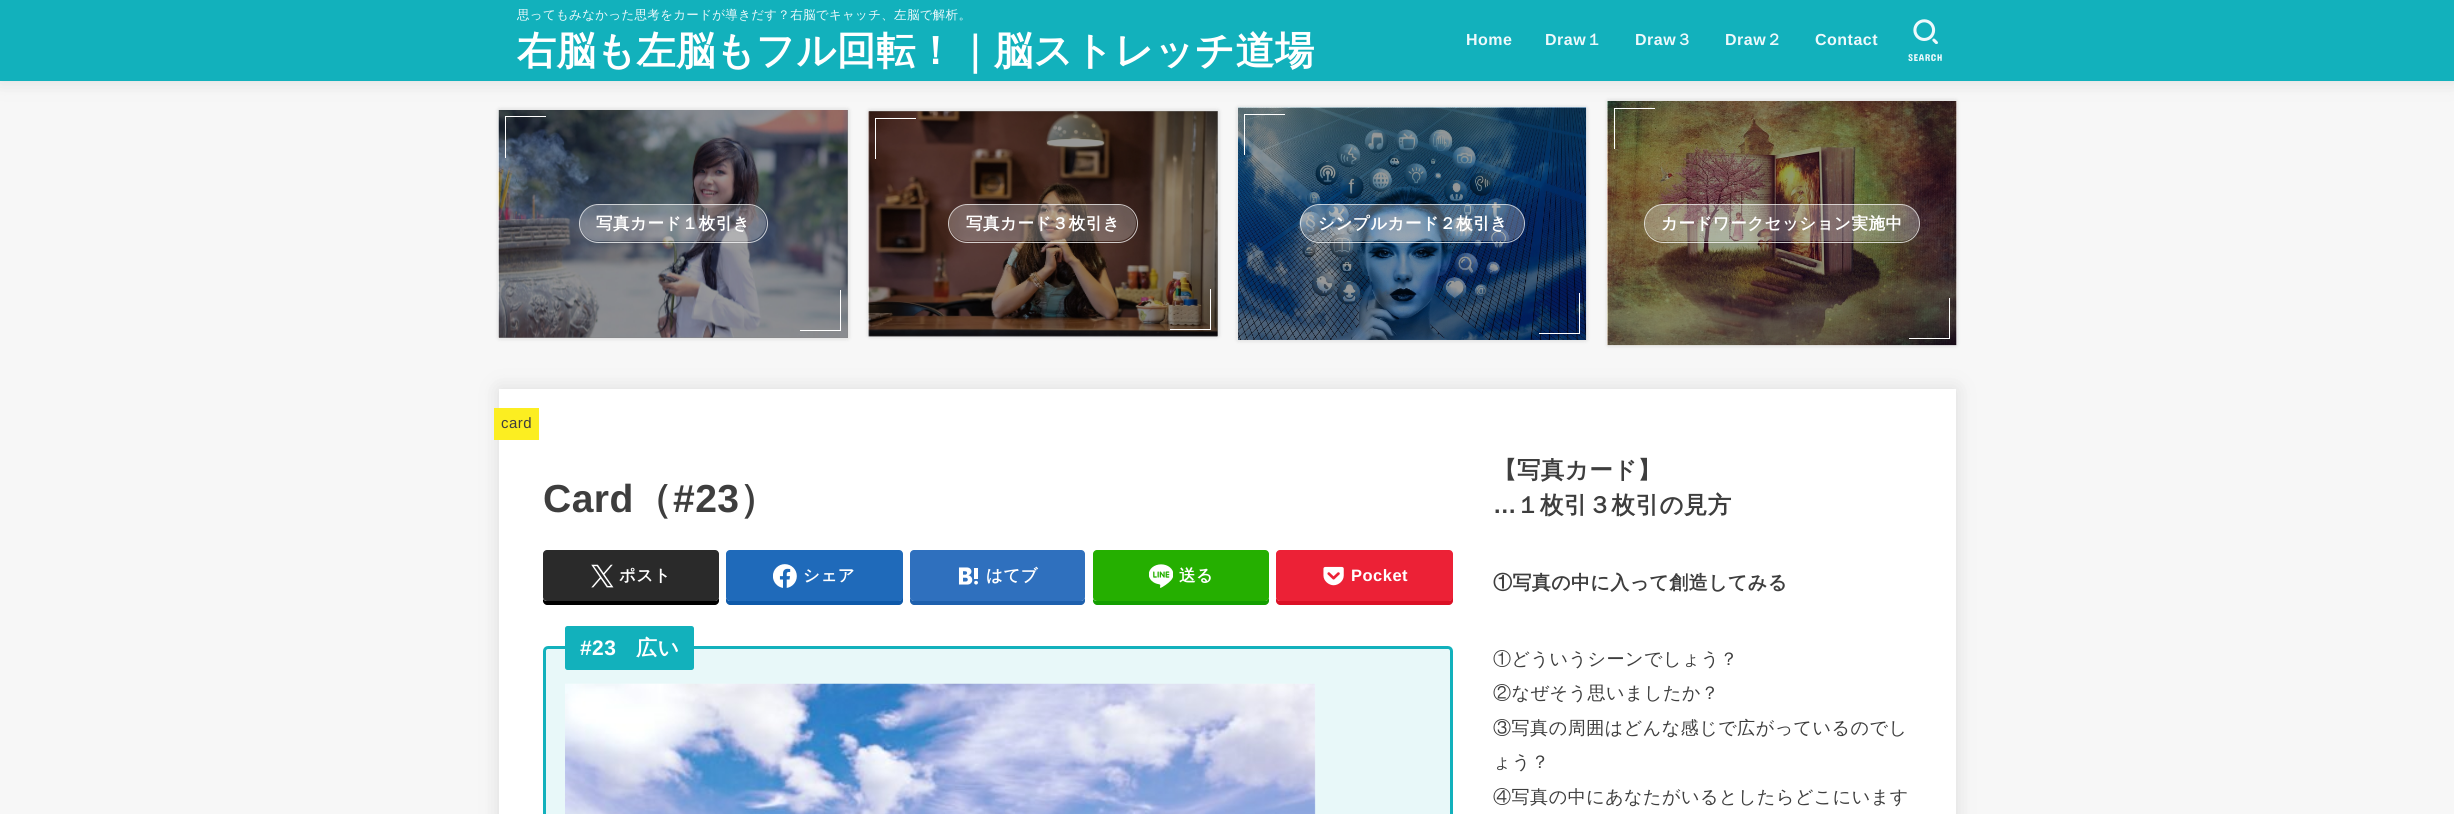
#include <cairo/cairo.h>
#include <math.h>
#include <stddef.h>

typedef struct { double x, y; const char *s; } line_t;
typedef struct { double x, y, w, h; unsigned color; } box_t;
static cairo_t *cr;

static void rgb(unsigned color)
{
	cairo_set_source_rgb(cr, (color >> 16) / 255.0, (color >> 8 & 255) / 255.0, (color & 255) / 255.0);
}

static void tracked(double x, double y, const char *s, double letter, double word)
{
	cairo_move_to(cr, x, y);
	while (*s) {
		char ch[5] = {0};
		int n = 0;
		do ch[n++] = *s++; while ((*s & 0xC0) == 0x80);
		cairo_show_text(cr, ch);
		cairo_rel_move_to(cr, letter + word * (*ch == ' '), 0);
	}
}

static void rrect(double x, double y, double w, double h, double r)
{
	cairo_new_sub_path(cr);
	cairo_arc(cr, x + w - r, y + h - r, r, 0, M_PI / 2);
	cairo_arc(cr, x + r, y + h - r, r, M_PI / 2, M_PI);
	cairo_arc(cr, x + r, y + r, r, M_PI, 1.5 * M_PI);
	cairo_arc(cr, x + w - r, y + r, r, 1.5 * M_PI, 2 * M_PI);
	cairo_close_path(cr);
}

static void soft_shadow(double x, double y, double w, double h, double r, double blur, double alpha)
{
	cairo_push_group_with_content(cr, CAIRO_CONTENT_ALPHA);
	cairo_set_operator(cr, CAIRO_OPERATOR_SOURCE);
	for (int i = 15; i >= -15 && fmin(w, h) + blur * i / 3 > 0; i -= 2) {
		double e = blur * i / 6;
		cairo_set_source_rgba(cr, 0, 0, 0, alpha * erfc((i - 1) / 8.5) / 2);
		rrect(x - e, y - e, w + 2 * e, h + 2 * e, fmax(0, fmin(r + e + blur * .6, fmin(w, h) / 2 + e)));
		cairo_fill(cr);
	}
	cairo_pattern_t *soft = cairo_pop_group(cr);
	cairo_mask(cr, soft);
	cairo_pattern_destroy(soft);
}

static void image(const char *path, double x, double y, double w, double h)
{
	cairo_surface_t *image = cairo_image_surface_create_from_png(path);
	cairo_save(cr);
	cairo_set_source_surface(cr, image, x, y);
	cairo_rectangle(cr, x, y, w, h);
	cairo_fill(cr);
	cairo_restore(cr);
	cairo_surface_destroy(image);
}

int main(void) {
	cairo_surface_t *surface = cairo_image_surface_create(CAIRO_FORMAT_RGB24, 2454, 814);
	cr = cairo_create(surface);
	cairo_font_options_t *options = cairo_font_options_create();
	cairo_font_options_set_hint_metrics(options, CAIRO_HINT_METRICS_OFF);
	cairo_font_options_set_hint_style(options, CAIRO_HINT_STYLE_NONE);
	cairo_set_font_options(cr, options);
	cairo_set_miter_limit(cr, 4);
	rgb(0xf7f7f7);
	cairo_paint(cr);
	rgb(0x000000);
	soft_shadow(499, 110, 349, 228, 0, 2.5, 0.15);
	image("img/2.png", 498, 110, 350, 228);
	cairo_set_source_rgba(cr, 0, 0, 0, 0.4);
	cairo_rectangle(cr, 499, 110, 349, 228);
	cairo_fill(cr);
	rgb(0x000000);
	soft_shadow(1238, 108, 348, 232, 0, 2.5, 0.15);
	image("img/4.png", 1238, 107, 349, 233);
	soft_shadow(1608, 101, 348, 244, 0, 2.5, 0.15);
	image("img/5.png", 1607, 101, 350, 245);
	rgb(0xffffff);
	cairo_rectangle(cr, 1614, 108, 41, 1);
	cairo_fill(cr);
	cairo_rectangle(cr, 1614, 108, 1, 41);
	cairo_fill(cr);
	rgb(0x666666);
	soft_shadow(0, 0, 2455, 81, 0, 9.5, 0.2);
	rgb(0x12b1bc);
	cairo_rectangle(cr, 0, 0, 2454, 81);
	cairo_fill(cr);
	image("img/1.png", 1913, 19, 25, 25);
	rgb(0xffffff);
	cairo_rectangle(cr, 505, 116, 41, 1);
	cairo_fill(cr);
	cairo_rectangle(cr, 505, 116, 1, 42);
	cairo_fill(cr);
	cairo_set_source_rgba(cr, 1, 1, 1, 0.25);
	rrect(580, 205, 186, 36, 18);
	cairo_fill(cr);
	rrect(579.5, 204.5, 188, 38, 19);
	cairo_set_source_rgba(cr, 1, 1, 1, 0.75);
	cairo_set_line_width(cr, 1);
	cairo_stroke(cr);
	rgb(0xffffff);
	cairo_rectangle(cr, 840, 290, 1, 41);
	cairo_fill(cr);
	cairo_rectangle(cr, 800, 330, 41, 1);
	cairo_fill(cr);
	rgb(0x000000);
	soft_shadow(869, 111, 349, 225, 0, 2.5, 0.15);
	image("img/3.png", 868, 111, 350, 226);
	cairo_set_source_rgba(cr, 0, 0, 0, 0.4);
	cairo_rectangle(cr, 869, 111, 349, 225);
	cairo_fill(cr);
	rgb(0xffffff);
	cairo_rectangle(cr, 875, 118, 41, 1);
	cairo_fill(cr);
	cairo_rectangle(cr, 875, 118, 1, 41);
	cairo_fill(cr);
	cairo_set_source_rgba(cr, 1, 1, 1, 0.25);
	rrect(949, 205, 187, 36, 18);
	cairo_fill(cr);
	rrect(948.5, 204.5, 189, 38, 19);
	cairo_set_source_rgba(cr, 1, 1, 1, 0.75);
	cairo_stroke(cr);
	{
		static const box_t items[] = {
			{1210, 289, 1, 41, 0xffffff},
			{1170, 329, 41, 1, 0xffffff},
			{1244, 114, 41, 1, 0xffffff},
			{1244, 114, 1, 41, 0xffffff},
		};
		for (size_t i = 0; i < sizeof items / sizeof *items; i++) {
			rgb(items[i].color);
			cairo_rectangle(cr, items[i].x, items[i].y, items[i].w, items[i].h);
			cairo_fill(cr);
		}
	}
	cairo_set_source_rgba(cr, 1, 1, 1, 0.25);
	rrect(1301, 205, 223, 36, 18);
	cairo_fill(cr);
	rrect(1300.5, 204.5, 224, 38, 19);
	cairo_set_source_rgba(cr, 1, 1, 1, 0.75);
	cairo_stroke(cr);
	rgb(0xffffff);
	cairo_rectangle(cr, 1579, 293, 1, 41);
	cairo_fill(cr);
	cairo_rectangle(cr, 1539, 333, 41, 1);
	cairo_fill(cr);
	cairo_set_source_rgba(cr, 1, 1, 1, 0.25);
	rrect(1645, 205, 274, 36, 18);
	cairo_fill(cr);
	rrect(1644.5, 204.5, 275, 38, 19);
	cairo_set_source_rgba(cr, 1, 1, 1, 0.75);
	cairo_stroke(cr);
	rgb(0xffffff);
	cairo_rectangle(cr, 1949, 298, 1, 41);
	cairo_fill(cr);
	cairo_rectangle(cr, 1909, 338, 41, 1);
	cairo_fill(cr);
	rgb(0x666666);
	soft_shadow(499, 389, 1457, 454, 0, 9.5, 0.2);
	rgb(0xffffff);
	cairo_rectangle(cr, 499, 389, 1457, 425);
	cairo_fill(cr);
	rgb(0xfcee21);
	cairo_rectangle(cr, 494, 408, 45, 32);
	cairo_fill(cr);
	rgb(0x000000);
	cairo_new_path(cr);
	cairo_move_to(cr, 543, 599);
	cairo_line_to(cr, 543, 601);
	cairo_curve_to(cr, 543, 603, 545, 605, 547, 605);
	cairo_line_to(cr, 715, 605);
	cairo_curve_to(cr, 717, 605, 719, 603, 719, 601);
	cairo_line_to(cr, 719, 557);
	cairo_line_to(cr, 719, 597);
	cairo_curve_to(cr, 719, 599, 717, 601, 715, 601);
	cairo_line_to(cr, 547, 601);
	cairo_curve_to(cr, 545, 601, 544, 600, 543, 599);
	cairo_close_path(cr);
	cairo_fill(cr);
	rgb(0x2a2a2a);
	rrect(543, 550, 176, 51, 4);
	cairo_fill(cr);
	image("img/6.png", 591, 564, 23, 24);
	rgb(0x0e59a9);
	cairo_new_path(cr);
	cairo_move_to(cr, 726, 557);
	cairo_line_to(cr, 726, 601);
	cairo_curve_to(cr, 726, 603, 728, 605, 730, 605);
	cairo_line_to(cr, 899, 605);
	cairo_curve_to(cr, 901, 605, 903, 603, 903, 601);
	cairo_line_to(cr, 903, 558);
	cairo_line_to(cr, 902, 556);
	cairo_line_to(cr, 902, 597);
	cairo_curve_to(cr, 902, 599, 901, 601, 898, 601);
	cairo_line_to(cr, 730, 601);
	cairo_curve_to(cr, 728, 601, 726, 599, 726, 597);
	cairo_close_path(cr);
	cairo_fill(cr);
	rgb(0x1f6aba);
	rrect(726, 550, 177, 51, 4);
	cairo_fill(cr);
	image("img/7.png", 773, 564, 24, 24);
	rgb(0x1e60ad);
	cairo_new_path(cr);
	cairo_move_to(cr, 910, 597);
	cairo_line_to(cr, 910, 601);
	cairo_curve_to(cr, 910, 603, 912, 605, 914, 605);
	cairo_line_to(cr, 1081, 605);
	cairo_curve_to(cr, 1083, 605, 1085, 603, 1085, 601);
	cairo_line_to(cr, 1085, 597);
	cairo_curve_to(cr, 1085, 599, 1083, 601, 1081, 601);
	cairo_line_to(cr, 914, 601);
	cairo_curve_to(cr, 912, 601, 910, 599, 910, 597);
	cairo_close_path(cr);
	cairo_fill(cr);
	rgb(0x2f70be);
	rrect(910, 550, 175, 51, 4);
	cairo_fill(cr);
	image("img/8.png", 958, 567, 20, 18);
	rgb(0x149e00);
	cairo_new_path(cr);
	cairo_move_to(cr, 1093, 599);
	cairo_line_to(cr, 1093, 601);
	cairo_curve_to(cr, 1093, 603, 1095, 605, 1097, 605);
	cairo_line_to(cr, 1265, 605);
	cairo_curve_to(cr, 1267, 605, 1269, 603, 1269, 601);
	cairo_line_to(cr, 1269, 557);
	cairo_line_to(cr, 1269, 597);
	cairo_curve_to(cr, 1269, 599, 1267, 601, 1265, 601);
	cairo_line_to(cr, 1097, 601);
	cairo_curve_to(cr, 1095, 601, 1094, 600, 1093, 599);
	cairo_close_path(cr);
	cairo_fill(cr);
	rgb(0x25af00);
	rrect(1093, 550, 176, 51, 4);
	cairo_fill(cr);
	image("img/9.png", 1149, 564, 24, 24);
	rgb(0xdb1025);
	cairo_new_path(cr);
	cairo_move_to(cr, 1276, 557);
	cairo_line_to(cr, 1276, 601);
	cairo_curve_to(cr, 1276, 603, 1278, 605, 1280, 605);
	cairo_line_to(cr, 1449, 605);
	cairo_curve_to(cr, 1451, 605, 1453, 603, 1453, 601);
	cairo_line_to(cr, 1453, 558);
	cairo_line_to(cr, 1452, 556);
	cairo_line_to(cr, 1452, 597);
	cairo_curve_to(cr, 1452, 599, 1451, 601, 1448, 601);
	cairo_line_to(cr, 1280, 601);
	cairo_curve_to(cr, 1278, 601, 1276, 599, 1276, 597);
	cairo_close_path(cr);
	cairo_fill(cr);
	rgb(0xec2136);
	rrect(1276, 550, 177, 51, 4);
	cairo_fill(cr);
	image("img/10.png", 1323, 566, 21, 20);
	rgb(0xe8f8f9);
	rrect(544.5, 647.5, 907, 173, 3.5);
	cairo_fill_preserve(cr);
	rgb(0x12b1bc);
	cairo_set_line_width(cr, 3);
	cairo_stroke(cr);
	rrect(565, 626, 129, 44, 2.5);
	cairo_fill(cr);
	image("img/11.png", 565, 683, 751, 131);
	cairo_select_font_face(cr, "WenQuanYi Zen Hei Medium", CAIRO_FONT_SLANT_NORMAL, CAIRO_FONT_WEIGHT_NORMAL);
	cairo_set_font_size(cr, 12.5);
	rgb(0xedf9fc);
	tracked(517, 19, "思ってもみなかった思考をカードが導きだす？右脳でキャッチ、左脳で解析。", 0.3, 0);
	cairo_select_font_face(cr, "WenQuanYi Zen Hei", CAIRO_FONT_SLANT_NORMAL, CAIRO_FONT_WEIGHT_BOLD);
	cairo_set_font_size(cr, 39.1);
	rgb(0xffffff);
	tracked(517, 64, "右脳も左脳もフル回転！｜脳ストレッチ道場", 0.4, 0);
	cairo_select_font_face(cr, "Liberation Sans", CAIRO_FONT_SLANT_NORMAL, CAIRO_FONT_WEIGHT_BOLD);
	cairo_set_font_size(cr, 16);
	rgb(0xedf9fc);
	tracked(1466, 45, "Home", 0.5, 0);
	tracked(1545, 45, "Draw", 0.5, 0);
	cairo_select_font_face(cr, "WenQuanYi Zen Hei", CAIRO_FONT_SLANT_NORMAL, CAIRO_FONT_WEIGHT_BOLD);
	tracked(1586, 45, "１", 0.5, 0);
	cairo_select_font_face(cr, "Liberation Sans", CAIRO_FONT_SLANT_NORMAL, CAIRO_FONT_WEIGHT_BOLD);
	tracked(1635, 45, "Draw", 0.5, 0);
	cairo_select_font_face(cr, "WenQuanYi Zen Hei", CAIRO_FONT_SLANT_NORMAL, CAIRO_FONT_WEIGHT_BOLD);
	tracked(1676, 45, "３", 0.5, 0);
	cairo_select_font_face(cr, "Liberation Sans", CAIRO_FONT_SLANT_NORMAL, CAIRO_FONT_WEIGHT_BOLD);
	tracked(1725, 45, "Draw", 0.5, 0);
	cairo_select_font_face(cr, "WenQuanYi Zen Hei", CAIRO_FONT_SLANT_NORMAL, CAIRO_FONT_WEIGHT_BOLD);
	tracked(1766, 45, "２", 0.5, 0);
	cairo_select_font_face(cr, "Liberation Sans", CAIRO_FONT_SLANT_NORMAL, CAIRO_FONT_WEIGHT_BOLD);
	tracked(1815, 45, "Contact", 0.5, 0);
	cairo_select_font_face(cr, "Concert One", CAIRO_FONT_SLANT_NORMAL, CAIRO_FONT_WEIGHT_NORMAL);
	cairo_set_font_size(cr, 10);
	tracked(1908, 61, "SEARCH", 0.5, 0);
	cairo_select_font_face(cr, "WenQuanYi Zen Hei", CAIRO_FONT_SLANT_NORMAL, CAIRO_FONT_WEIGHT_BOLD);
	cairo_set_font_size(cr, 16.5);
	rgb(0xffffff);
	{
		static const line_t items[] = {
			{596, 229, "写真カード１枚引き"},
			{966, 229, "写真カード３枚引き"},
			{1318, 229, "シンプルカード２枚引き"},
			{1661, 229, "カードワークセッション実施中"},
		};
		for (size_t i = 0; i < sizeof items / sizeof *items; i++) {
			tracked(items[i].x, items[i].y, items[i].s, 0.5, 0);
		}
	}
	cairo_select_font_face(cr, "Liberation Sans", CAIRO_FONT_SLANT_NORMAL, CAIRO_FONT_WEIGHT_NORMAL);
	cairo_set_font_size(cr, 15);
	rgb(0x3e3e3e);
	tracked(501, 428, "card", 0.5, 0);
	cairo_select_font_face(cr, "Liberation Sans", CAIRO_FONT_SLANT_NORMAL, CAIRO_FONT_WEIGHT_BOLD);
	cairo_set_font_size(cr, 39.1);
	tracked(543, 512, "Card", 0.4, 0);
	cairo_select_font_face(cr, "WenQuanYi Zen Hei", CAIRO_FONT_SLANT_NORMAL, CAIRO_FONT_WEIGHT_BOLD);
	tracked(633, 512, "（", 0.4, 0);
	cairo_select_font_face(cr, "Liberation Sans", CAIRO_FONT_SLANT_NORMAL, CAIRO_FONT_WEIGHT_BOLD);
	tracked(673, 512, "#23", 0.4, 0);
	cairo_select_font_face(cr, "WenQuanYi Zen Hei", CAIRO_FONT_SLANT_NORMAL, CAIRO_FONT_WEIGHT_BOLD);
	tracked(739, 512, "）", 0.4, 0);
	cairo_set_font_size(cr, 16.5);
	rgb(0xffffff);
	{
		static const line_t items[] = {
			{619, 581, "ポスト"},
			{803, 581, "シェア"},
			{986, 581, "はてブ"},
			{1179, 581, "送る"},
		};
		for (size_t i = 0; i < sizeof items / sizeof *items; i++) {
			tracked(items[i].x, items[i].y, items[i].s, 0.5, 0);
		}
	}
	cairo_select_font_face(cr, "Liberation Sans", CAIRO_FONT_SLANT_NORMAL, CAIRO_FONT_WEIGHT_BOLD);
	tracked(1351, 581, "Pocket", 0.5, 0);
	cairo_set_font_size(cr, 21);
	tracked(580, 655, "#23", 0.4, 0);
	cairo_select_font_face(cr, "WenQuanYi Zen Hei", CAIRO_FONT_SLANT_NORMAL, CAIRO_FONT_WEIGHT_BOLD);
	tracked(636, 655, "広い", 0.4, 0);
	cairo_set_font_size(cr, 23.5);
	rgb(0x3e3e3e);
	tracked(1493, 478, "【写真カード】", 0.4, 0);
	cairo_select_font_face(cr, "Liberation Sans", CAIRO_FONT_SLANT_NORMAL, CAIRO_FONT_WEIGHT_BOLD);
	tracked(1493, 513, "…", 0.4, 0);
	cairo_select_font_face(cr, "WenQuanYi Zen Hei", CAIRO_FONT_SLANT_NORMAL, CAIRO_FONT_WEIGHT_BOLD);
	tracked(1516, 513, "１枚引３枚引の見方", 0.4, 0);
	cairo_set_font_size(cr, 19);
	tracked(1493, 589, "①写真の中に入って創造してみる", 0.4, 0);
	cairo_select_font_face(cr, "WenQuanYi Zen Hei Medium", CAIRO_FONT_SLANT_NORMAL, CAIRO_FONT_WEIGHT_NORMAL);
	cairo_set_font_size(cr, 18.1);
	{
		static const line_t items[] = {
			{1493, 665, "①どういうシーンでしょう？"},
			{1493, 699, "②なぜそう思いましたか？"},
			{1493, 734, "③写真の周囲はどんな感じで広がっているのでし"},
			{1493, 768, "ょう？"},
			{1493, 803, "④写真の中にあなたがいるとしたらどこにいます"},
		};
		for (size_t i = 0; i < sizeof items / sizeof *items; i++) {
			tracked(items[i].x, items[i].y, items[i].s, 0.45, 0);
		}
	}
	cairo_surface_write_to_png(surface, "page.png");
	cairo_font_options_destroy(options);
	cairo_destroy(cr);
	cairo_surface_destroy(surface);
	return 0;
}
